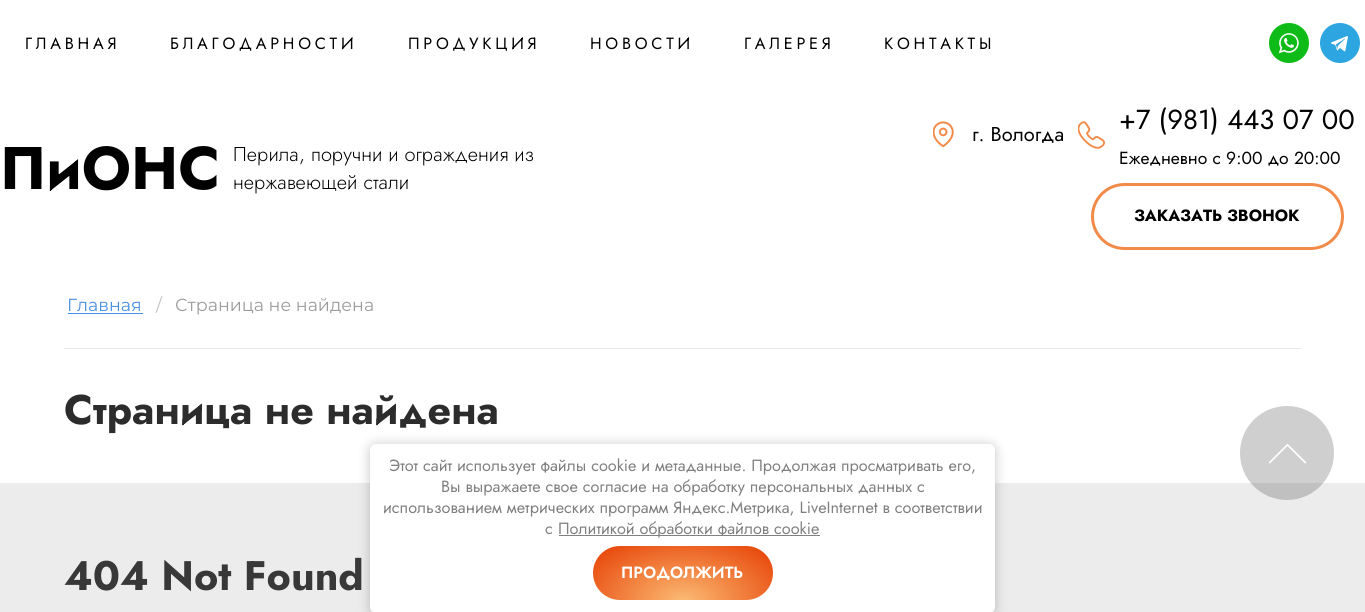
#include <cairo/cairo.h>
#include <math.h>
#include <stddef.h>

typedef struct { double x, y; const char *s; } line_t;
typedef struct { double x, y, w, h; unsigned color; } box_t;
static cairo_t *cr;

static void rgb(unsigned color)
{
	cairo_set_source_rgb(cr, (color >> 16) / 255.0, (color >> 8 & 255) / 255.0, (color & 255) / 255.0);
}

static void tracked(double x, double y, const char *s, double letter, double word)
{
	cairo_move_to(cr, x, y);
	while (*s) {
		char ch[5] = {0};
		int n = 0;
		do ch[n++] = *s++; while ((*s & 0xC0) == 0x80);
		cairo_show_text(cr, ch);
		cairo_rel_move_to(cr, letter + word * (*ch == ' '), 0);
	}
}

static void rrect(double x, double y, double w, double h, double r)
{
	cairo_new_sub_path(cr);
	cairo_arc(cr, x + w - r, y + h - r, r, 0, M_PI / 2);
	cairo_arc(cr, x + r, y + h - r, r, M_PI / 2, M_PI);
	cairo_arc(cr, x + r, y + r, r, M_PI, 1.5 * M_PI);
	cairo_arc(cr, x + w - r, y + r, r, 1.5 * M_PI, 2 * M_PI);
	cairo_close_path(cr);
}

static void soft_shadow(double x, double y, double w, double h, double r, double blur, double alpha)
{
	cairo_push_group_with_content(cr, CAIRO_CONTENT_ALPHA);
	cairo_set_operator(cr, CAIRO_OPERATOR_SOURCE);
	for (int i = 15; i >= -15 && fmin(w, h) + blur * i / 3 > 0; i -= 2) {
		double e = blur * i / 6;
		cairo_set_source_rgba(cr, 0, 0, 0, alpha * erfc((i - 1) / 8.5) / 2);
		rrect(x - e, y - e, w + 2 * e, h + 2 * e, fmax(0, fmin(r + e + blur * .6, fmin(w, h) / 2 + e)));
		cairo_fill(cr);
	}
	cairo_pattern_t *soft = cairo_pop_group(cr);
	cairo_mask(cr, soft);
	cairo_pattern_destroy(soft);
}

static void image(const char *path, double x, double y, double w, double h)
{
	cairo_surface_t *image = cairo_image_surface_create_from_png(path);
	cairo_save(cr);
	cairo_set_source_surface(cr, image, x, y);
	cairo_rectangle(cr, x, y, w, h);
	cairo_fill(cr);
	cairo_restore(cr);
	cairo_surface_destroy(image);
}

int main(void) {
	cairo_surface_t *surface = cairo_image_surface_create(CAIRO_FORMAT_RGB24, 1365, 612);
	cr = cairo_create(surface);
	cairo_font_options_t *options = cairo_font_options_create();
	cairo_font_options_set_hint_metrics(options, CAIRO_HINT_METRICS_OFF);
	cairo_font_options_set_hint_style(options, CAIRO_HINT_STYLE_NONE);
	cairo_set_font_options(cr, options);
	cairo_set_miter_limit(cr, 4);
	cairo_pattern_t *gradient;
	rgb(0xffffff);
	cairo_paint(cr);
	image("img/1.png", 1269, 23, 40, 40);
	image("img/2.png", 1320, 23, 40, 40);
	image("img/3.png", 933, 121, 21, 27);
	image("img/4.png", 1078, 121, 27, 28);
	rrect(1092.5, 184.5, 250, 64, 32);
	rgb(0xf28b49);
	cairo_set_line_width(cr, 3);
	cairo_stroke(cr);
	{
		static const box_t items[] = {
			{64, 348, 1237, 1, 0xe6e6e6},
			{68, 313, 75, 1, 0x4a90e2},
			{0, 483, 1365, 129, 0xececec},
		};
		for (size_t i = 0; i < sizeof items / sizeof *items; i++) {
			rgb(items[i].color);
			cairo_rectangle(cr, items[i].x, items[i].y, items[i].w, items[i].h);
			cairo_fill(cr);
		}
	}
	rgb(0x000000);
	soft_shadow(370, 445, 625, 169, 6, 6, 0.23);
	rgb(0xffffff);
	rrect(370, 444, 625, 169, 6);
	cairo_fill(cr);
	rgb(0x808080);
	cairo_rectangle(cr, 559, 535, 261, 1);
	cairo_fill(cr);
	gradient = cairo_pattern_create_radial(0, 0, 0, 0, 0, 1);
	cairo_pattern_set_matrix(gradient, &(cairo_matrix_t){1.0 / 127, 0, 0, 1.0 / 76, -1.0 * 683 / 127, -1.0 * 600 / 76});
	cairo_pattern_add_color_stop_rgba(gradient, 0, 0.984, 0.729, 0.451, 1);
	cairo_pattern_add_color_stop_rgba(gradient, 1, 0.902, 0.243, 0.008, 1);
	cairo_set_source(cr, gradient);
	cairo_pattern_destroy(gradient);
	rrect(593, 546, 180, 54, 27);
	cairo_fill(cr);
	cairo_set_source_rgba(cr, 0, 0, 0, 0.19);
	cairo_arc(cr, 1287, 453, 47, 0, 2 * M_PI);
	cairo_fill(cr);
	image("img/5.png", 1269, 444, 37, 20);
	cairo_select_font_face(cr, "Jost", CAIRO_FONT_SLANT_NORMAL, CAIRO_FONT_WEIGHT_NORMAL);
	cairo_set_font_size(cr, 16.25);
	rgb(0x000000);
	{
		static const line_t items[] = {
			{25, 49, "ГЛАВНАЯ"},
			{170, 49, "БЛАГОДАРНОСТИ"},
			{408, 49, "ПРОДУКЦИЯ"},
			{590, 49, "НОВОСТИ"},
			{744, 49, "ГАЛЕРЕЯ"},
			{884, 49, "КОНТАКТЫ"},
		};
		for (size_t i = 0; i < sizeof items / sizeof *items; i++) {
			tracked(items[i].x, items[i].y, items[i].s, 3.75, 0);
		}
	}
	cairo_select_font_face(cr, "Jost", CAIRO_FONT_SLANT_NORMAL, CAIRO_FONT_WEIGHT_BOLD);
	cairo_set_font_size(cr, 60);
	cairo_move_to(cr, 0, 189);
	cairo_show_text(cr, "ПиОНС");
	cairo_select_font_face(cr, "Jost Light", CAIRO_FONT_SLANT_NORMAL, CAIRO_FONT_WEIGHT_NORMAL);
	cairo_set_font_size(cr, 20);
	cairo_move_to(cr, 233, 161);
	cairo_show_text(cr, "Перила, поручни и ограждения из");
	cairo_move_to(cr, 233, 189);
	cairo_show_text(cr, "нержавеющей стали");
	cairo_select_font_face(cr, "Jost", CAIRO_FONT_SLANT_NORMAL, CAIRO_FONT_WEIGHT_NORMAL);
	cairo_move_to(cr, 972, 141);
	cairo_show_text(cr, "г. Вологда");
	cairo_set_font_size(cr, 27.5);
	cairo_move_to(cr, 1119, 129);
	cairo_show_text(cr, "+7 (981) 443 07 00");
	cairo_set_font_size(cr, 17.5);
	cairo_move_to(cr, 1119, 164);
	cairo_show_text(cr, "Ежедневно с 9:00 до 20:00");
	cairo_select_font_face(cr, "Jost", CAIRO_FONT_SLANT_NORMAL, CAIRO_FONT_WEIGHT_BOLD);
	cairo_set_font_size(cr, 16.25);
	cairo_move_to(cr, 1134, 221);
	cairo_show_text(cr, "ЗАКАЗАТЬ ЗВОНОК");
	cairo_select_font_face(cr, "Montserrat", CAIRO_FONT_SLANT_NORMAL, CAIRO_FONT_WEIGHT_NORMAL);
	cairo_set_font_size(cr, 17.5);
	rgb(0x4a90e2);
	cairo_move_to(cr, 67, 311);
	cairo_show_text(cr, "Главная");
	rgb(0xc0c0c0);
	cairo_move_to(cr, 156, 311);
	cairo_show_text(cr, "/");
	rgb(0x9c9c9c);
	cairo_move_to(cr, 175, 311);
	cairo_show_text(cr, "Страница не найдена");
	cairo_select_font_face(cr, "Jost", CAIRO_FONT_SLANT_NORMAL, CAIRO_FONT_WEIGHT_BOLD);
	cairo_set_font_size(cr, 41.25);
	rgb(0x2c2c2c);
	cairo_move_to(cr, 64, 424);
	cairo_show_text(cr, "Страница не найдена");
	rgb(0x383838);
	cairo_move_to(cr, 64, 590);
	cairo_show_text(cr, "404 Not Found");
	cairo_select_font_face(cr, "Jost", CAIRO_FONT_SLANT_NORMAL, CAIRO_FONT_WEIGHT_NORMAL);
	cairo_set_font_size(cr, 16.25);
	rgb(0x808080);
	{
		static const line_t items[] = {
			{389, 471, "Этот сайт использует файлы cookie и метаданные. Продолжая просматривать его,"},
			{441, 492, "Вы выражаете свое согласие на обработку персональных данных с"},
			{383, 513, "использованием метрических программ Яндекс.Метрика, LiveInternet в соответствии"},
			{545, 534, "с"},
			{558, 534, "Политикой обработки файлов cookie"},
		};
		for (size_t i = 0; i < sizeof items / sizeof *items; i++) {
			cairo_move_to(cr, items[i].x, items[i].y);
			cairo_show_text(cr, items[i].s);
		}
	}
	cairo_select_font_face(cr, "Jost SemiBold", CAIRO_FONT_SLANT_NORMAL, CAIRO_FONT_WEIGHT_NORMAL);
	rgb(0xffffff);
	cairo_move_to(cr, 621, 578);
	cairo_show_text(cr, "ПРОДОЛЖИТЬ");
	cairo_surface_write_to_png(surface, "page.png");
	cairo_font_options_destroy(options);
	cairo_destroy(cr);
	cairo_surface_destroy(surface);
	return 0;
}
